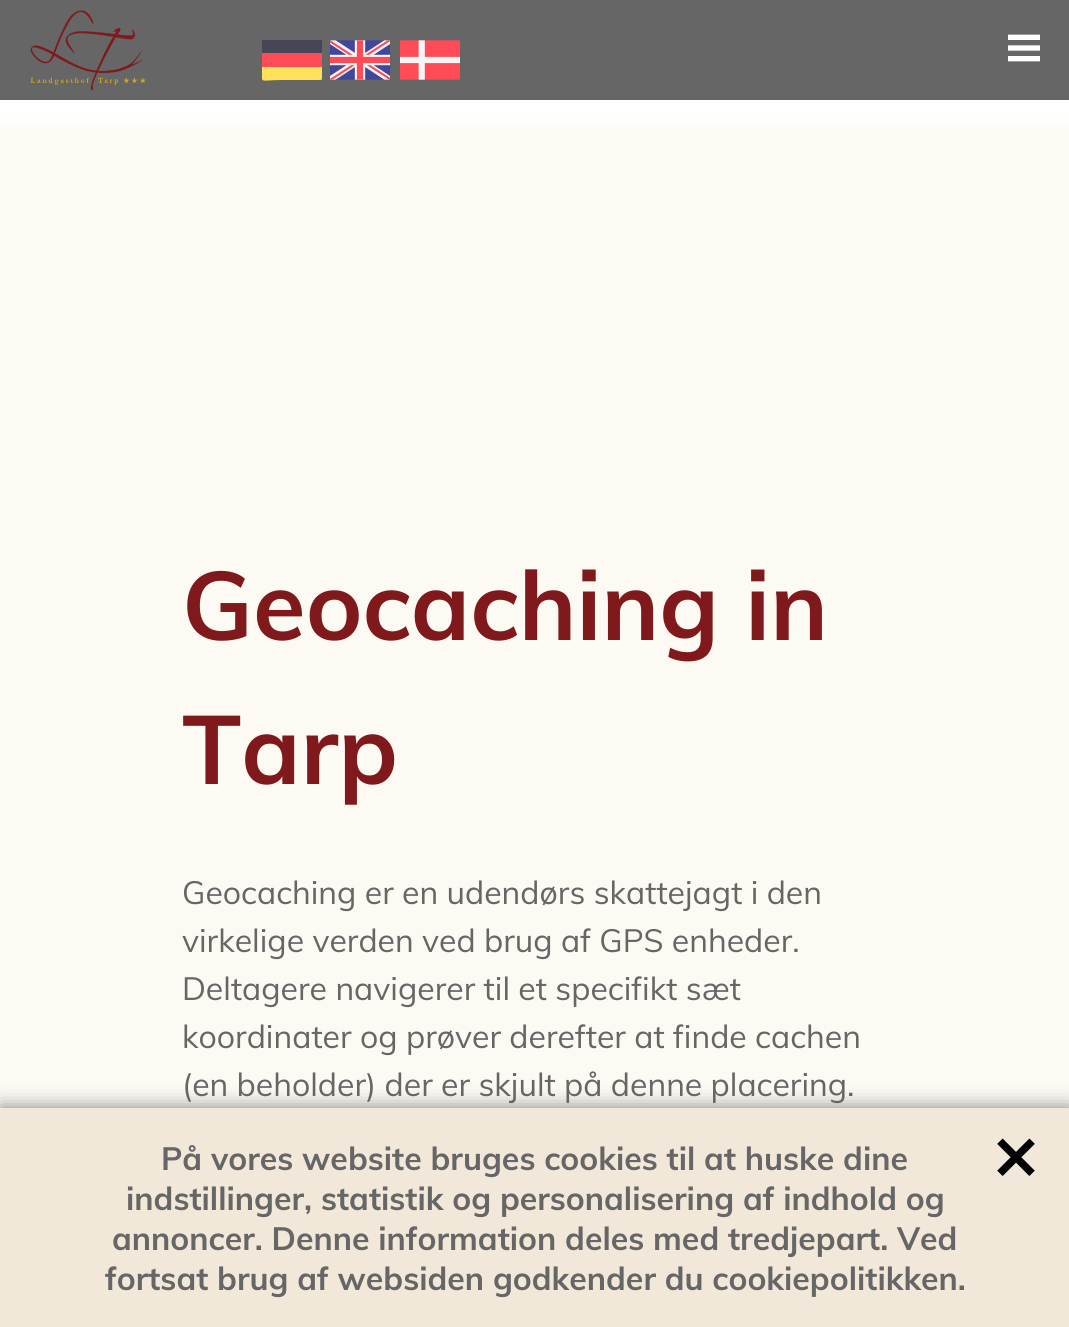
#include <cairo/cairo.h>
#include <math.h>
#include <stddef.h>

typedef struct { double x, y; const char *s; } line_t;
static cairo_t *cr;

static void rgb(unsigned color)
{
	cairo_set_source_rgb(cr, (color >> 16) / 255.0, (color >> 8 & 255) / 255.0, (color & 255) / 255.0);
}

static void rrect(double x, double y, double w, double h, double r)
{
	cairo_new_sub_path(cr);
	cairo_arc(cr, x + w - r, y + h - r, r, 0, M_PI / 2);
	cairo_arc(cr, x + r, y + h - r, r, M_PI / 2, M_PI);
	cairo_arc(cr, x + r, y + r, r, M_PI, 1.5 * M_PI);
	cairo_arc(cr, x + w - r, y + r, r, 1.5 * M_PI, 2 * M_PI);
	cairo_close_path(cr);
}

static void soft_shadow(double x, double y, double w, double h, double r, double blur, double alpha)
{
	cairo_push_group_with_content(cr, CAIRO_CONTENT_ALPHA);
	cairo_set_operator(cr, CAIRO_OPERATOR_SOURCE);
	for (int i = 15; i >= -15 && fmin(w, h) + blur * i / 3 > 0; i -= 2) {
		double e = blur * i / 6;
		cairo_set_source_rgba(cr, 0, 0, 0, alpha * erfc((i - 1) / 8.5) / 2);
		rrect(x - e, y - e, w + 2 * e, h + 2 * e, fmax(0, fmin(r + e + blur * .6, fmin(w, h) / 2 + e)));
		cairo_fill(cr);
	}
	cairo_pattern_t *soft = cairo_pop_group(cr);
	cairo_mask(cr, soft);
	cairo_pattern_destroy(soft);
}

static void image(const char *path, double x, double y, double w, double h)
{
	cairo_surface_t *image = cairo_image_surface_create_from_png(path);
	cairo_save(cr);
	cairo_set_source_surface(cr, image, x, y);
	cairo_rectangle(cr, x, y, w, h);
	cairo_fill(cr);
	cairo_restore(cr);
	cairo_surface_destroy(image);
}

int main(void) {
	cairo_surface_t *surface = cairo_image_surface_create(CAIRO_FORMAT_RGB24, 1069, 1327);
	cr = cairo_create(surface);
	cairo_font_options_t *options = cairo_font_options_create();
	cairo_font_options_set_hint_metrics(options, CAIRO_HINT_METRICS_OFF);
	cairo_font_options_set_hint_style(options, CAIRO_HINT_STYLE_NONE);
	cairo_set_font_options(cr, options);
	cairo_set_miter_limit(cr, 4);
	cairo_pattern_t *gradient;
	rgb(0xfcfaf3);
	cairo_paint(cr);
	gradient = cairo_pattern_create_linear(535, 100, 535, 132);
	cairo_pattern_add_color_stop_rgba(gradient, 0.2, 1, 1, 1, 1);
	cairo_pattern_add_color_stop_rgba(gradient, 0.7, 0.996, 0.996, 0.984, 1);
	cairo_pattern_add_color_stop_rgba(gradient, 1, 0.988, 0.98, 0.953, 1);
	cairo_set_source(cr, gradient);
	cairo_pattern_destroy(gradient);
	cairo_rectangle(cr, 0, 100, 1069, 29);
	cairo_fill(cr);
	rgb(0x666666);
	cairo_rectangle(cr, 0, 0, 1069, 100);
	cairo_fill(cr);
	image("img/1.png", 30, 10, 116, 80);
	rgb(0x464655);
	cairo_new_path(cr);
	cairo_move_to(cr, 322, 53);
	cairo_line_to(cr, 262, 53);
	cairo_line_to(cr, 262, 41);
	cairo_curve_to(cr, 262, 41, 262, 40, 263, 40);
	cairo_line_to(cr, 321, 40);
	cairo_curve_to(cr, 322, 40, 322, 41, 322, 41);
	cairo_close_path(cr);
	cairo_fill(cr);
	image("img/2.png", 330, 40, 60, 40);
	image("img/3.png", 400, 40, 60, 40);
	rgb(0xff4b55);
	cairo_rectangle(cr, 262, 53, 60, 14);
	cairo_fill(cr);
	cairo_save(cr);
	cairo_rectangle(cr, 262, 30, 60, 60);
	cairo_clip(cr);
	rgb(0xffe15a);
	cairo_new_path(cr);
	cairo_move_to(cr, 321, 80);
	cairo_line_to(cr, 282, 80);
	cairo_curve_to(cr, 258, 80, 262, 85, 262, 67);
	cairo_line_to(cr, 322, 67);
	cairo_curve_to(cr, 322, 69, 323, 80, 321, 80);
	cairo_close_path(cr);
	cairo_fill(cr);
	cairo_restore(cr);
	rgb(0x000000);
	soft_shadow(0, 1108, 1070, 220, 0, 10, 0.5);
	rgb(0xf1e8d9);
	cairo_rectangle(cr, 0, 1108, 1069, 219);
	cairo_fill(cr);
	cairo_select_font_face(cr, "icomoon", CAIRO_FONT_SLANT_NORMAL, CAIRO_FONT_WEIGHT_NORMAL);
	cairo_set_font_size(cr, 32);
	rgb(0xffffff);
	cairo_move_to(cr, 1008, 62);
	cairo_show_text(cr, "≡");
	cairo_select_font_face(cr, "Muli", CAIRO_FONT_SLANT_NORMAL, CAIRO_FONT_WEIGHT_BOLD);
	cairo_set_font_size(cr, 96);
	rgb(0x80191c);
	cairo_move_to(cr, 182, 640);
	cairo_show_text(cr, "Geocaching in");
	cairo_move_to(cr, 182, 784);
	cairo_show_text(cr, "Tarp");
	cairo_select_font_face(cr, "Muli", CAIRO_FONT_SLANT_NORMAL, CAIRO_FONT_WEIGHT_NORMAL);
	cairo_set_font_size(cr, 32);
	rgb(0x666666);
	{
		static const line_t items[] = {
			{182, 904, "Geocaching er en udendørs skattejagt i den"},
			{182, 952, "virkelige verden ved brug af GPS enheder."},
			{182, 1000, "Deltagere navigerer til et specifikt sæt"},
			{182, 1048, "koordinater og prøver derefter at finde cachen"},
			{182, 1096, "(en beholder) der er skjult på denne placering."},
		};
		for (size_t i = 0; i < sizeof items / sizeof *items; i++) {
			cairo_move_to(cr, items[i].x, items[i].y);
			cairo_show_text(cr, items[i].s);
		}
	}
	cairo_select_font_face(cr, "Muli", CAIRO_FONT_SLANT_NORMAL, CAIRO_FONT_WEIGHT_BOLD);
	{
		static const line_t items[] = {
			{161, 1170, "På vores website bruges cookies til at huske dine"},
			{126, 1210, "indstillinger, statistik og personalisering af indhold og"},
			{112, 1250, "annoncer. Denne information deles med tredjepart. Ved"},
			{105, 1290, "fortsat brug af websiden godkender du cookiepolitikken."},
		};
		for (size_t i = 0; i < sizeof items / sizeof *items; i++) {
			cairo_move_to(cr, items[i].x, items[i].y);
			cairo_show_text(cr, items[i].s);
		}
	}
	cairo_select_font_face(cr, "DejaVu Sans", CAIRO_FONT_SLANT_NORMAL, CAIRO_FONT_WEIGHT_BOLD);
	cairo_set_font_size(cr, 60);
	rgb(0x000000);
	cairo_move_to(cr, 990, 1180);
	cairo_show_text(cr, "✕");
	cairo_surface_write_to_png(surface, "page.png");
	cairo_font_options_destroy(options);
	cairo_destroy(cr);
	cairo_surface_destroy(surface);
	return 0;
}
